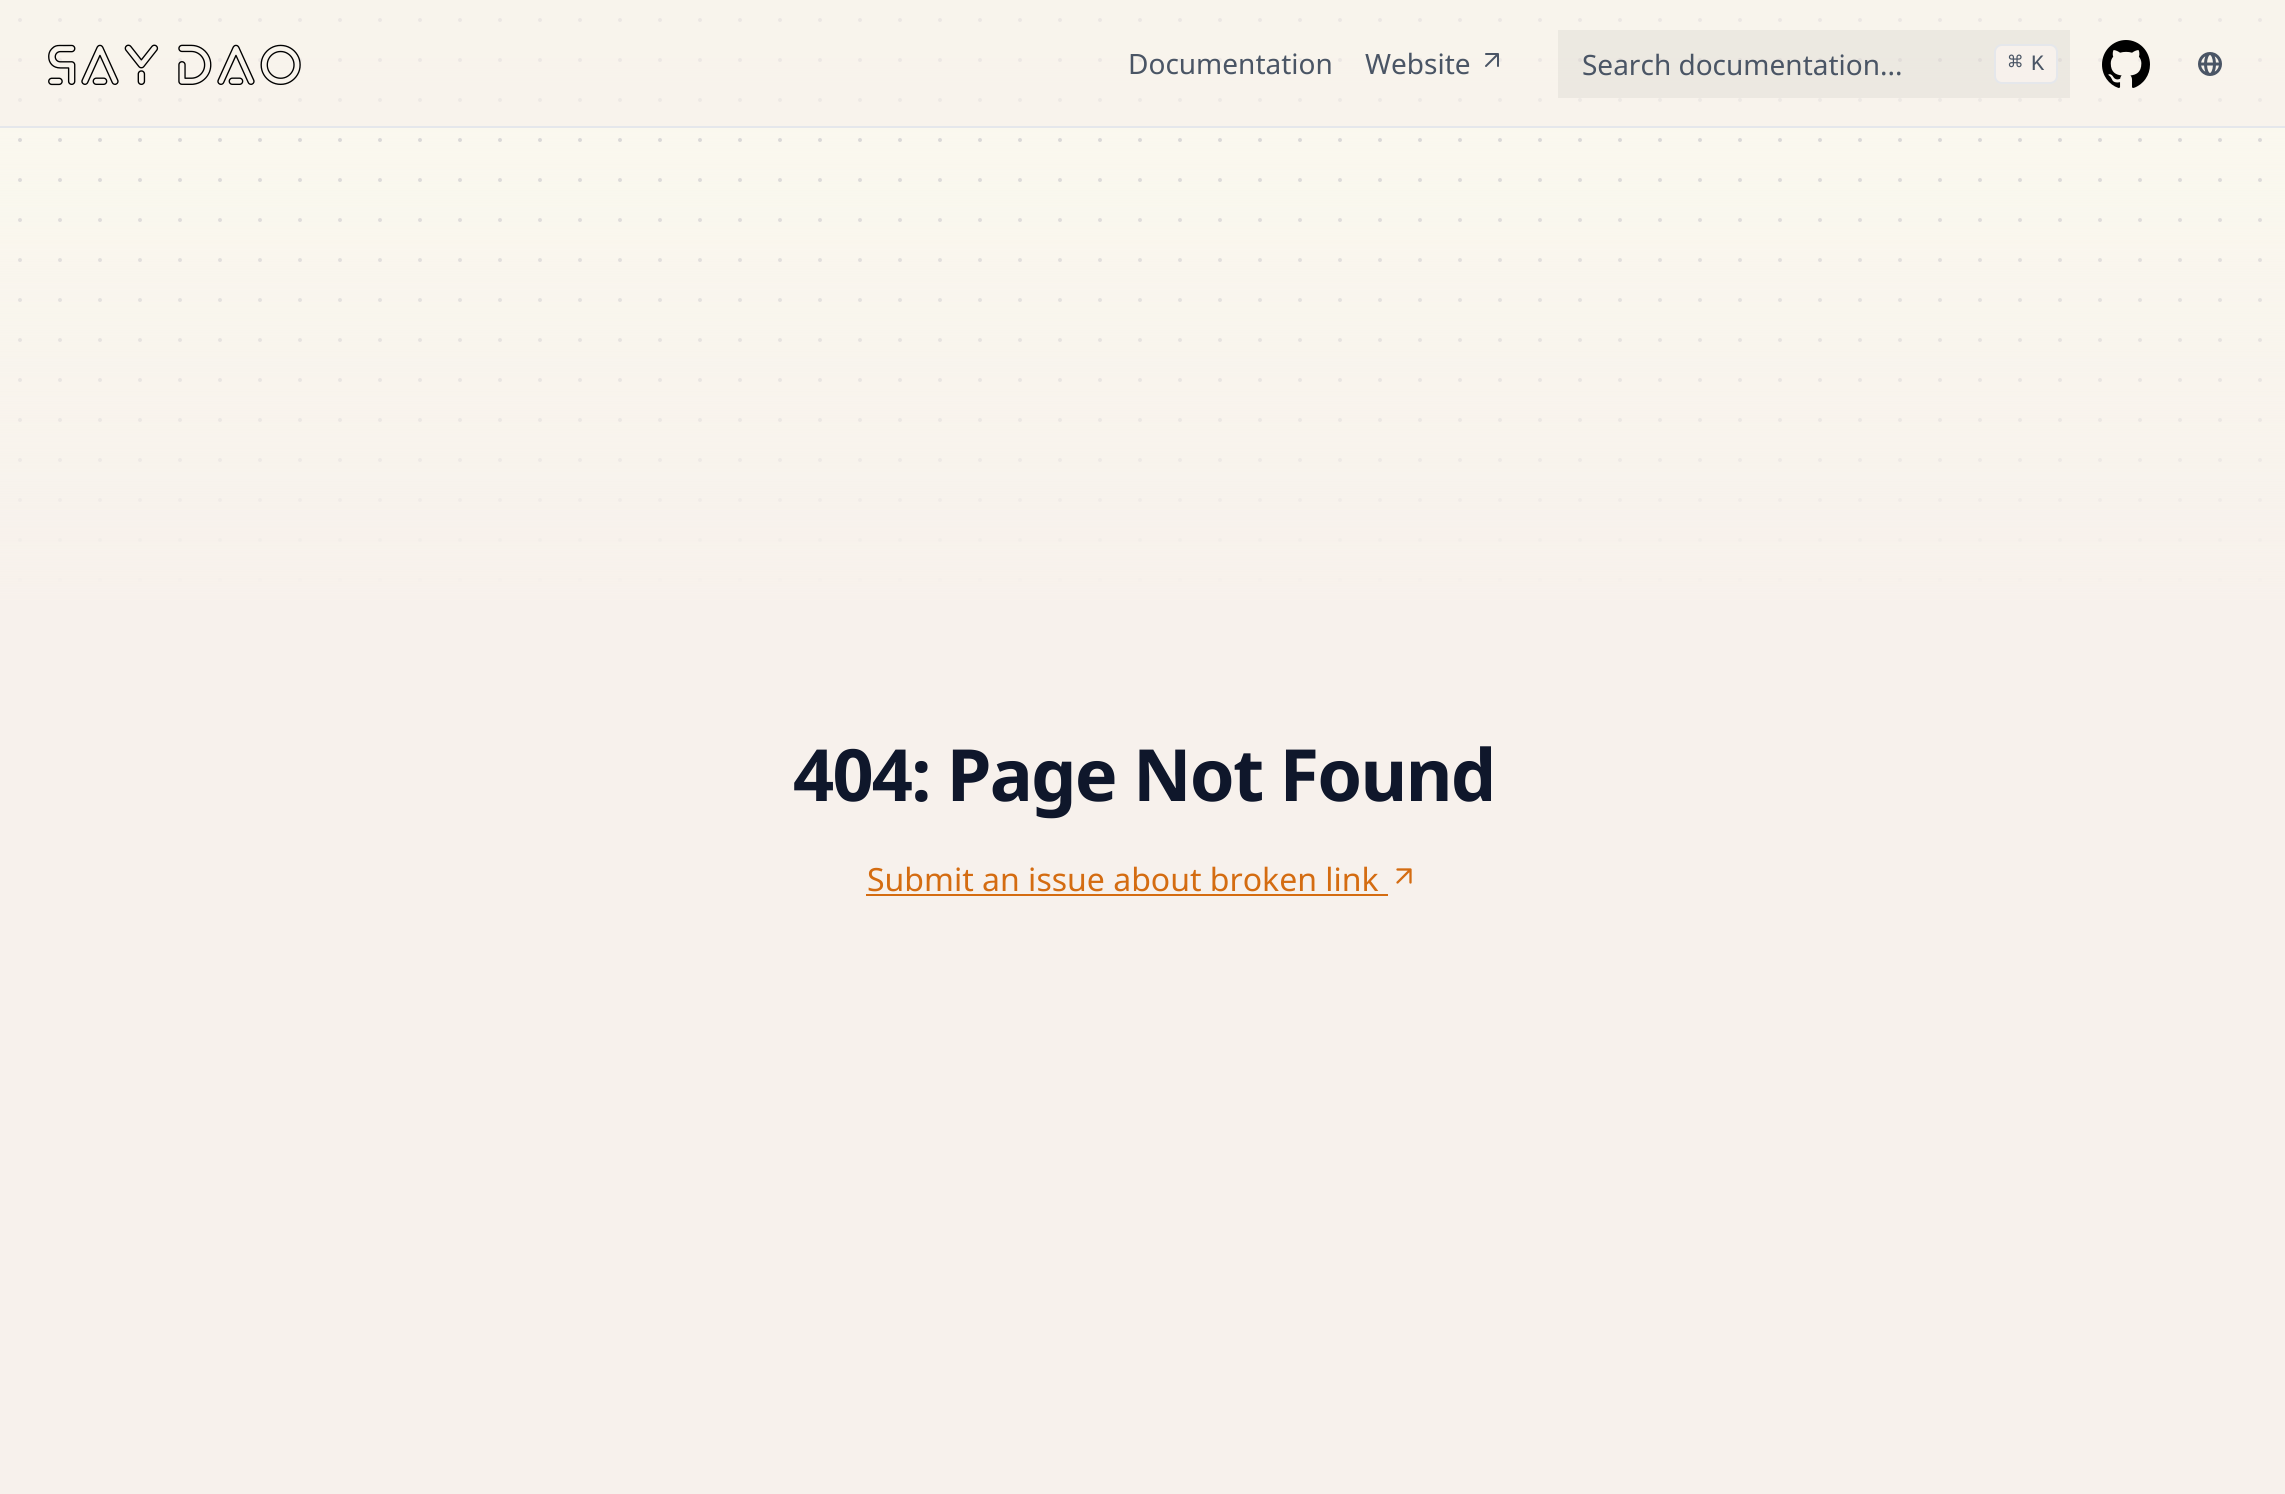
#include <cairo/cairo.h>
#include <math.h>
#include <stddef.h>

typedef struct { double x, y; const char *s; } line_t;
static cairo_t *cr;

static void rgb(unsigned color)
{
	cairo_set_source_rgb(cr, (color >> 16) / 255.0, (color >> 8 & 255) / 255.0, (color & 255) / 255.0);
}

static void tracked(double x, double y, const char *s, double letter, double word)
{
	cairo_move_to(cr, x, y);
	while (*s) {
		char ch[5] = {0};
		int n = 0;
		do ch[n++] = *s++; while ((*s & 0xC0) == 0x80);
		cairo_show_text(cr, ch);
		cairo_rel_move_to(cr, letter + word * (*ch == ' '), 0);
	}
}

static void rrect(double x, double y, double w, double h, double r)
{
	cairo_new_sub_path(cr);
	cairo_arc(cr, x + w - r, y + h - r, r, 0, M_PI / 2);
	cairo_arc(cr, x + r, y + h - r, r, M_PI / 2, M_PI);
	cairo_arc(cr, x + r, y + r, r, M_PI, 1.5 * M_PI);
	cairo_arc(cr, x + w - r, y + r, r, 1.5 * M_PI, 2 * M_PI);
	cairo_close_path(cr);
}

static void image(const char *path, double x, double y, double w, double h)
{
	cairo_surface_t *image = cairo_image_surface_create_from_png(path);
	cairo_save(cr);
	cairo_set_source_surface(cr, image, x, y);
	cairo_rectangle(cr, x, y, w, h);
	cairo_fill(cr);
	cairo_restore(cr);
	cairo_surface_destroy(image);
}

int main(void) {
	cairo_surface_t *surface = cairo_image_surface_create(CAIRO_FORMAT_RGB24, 2285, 1494);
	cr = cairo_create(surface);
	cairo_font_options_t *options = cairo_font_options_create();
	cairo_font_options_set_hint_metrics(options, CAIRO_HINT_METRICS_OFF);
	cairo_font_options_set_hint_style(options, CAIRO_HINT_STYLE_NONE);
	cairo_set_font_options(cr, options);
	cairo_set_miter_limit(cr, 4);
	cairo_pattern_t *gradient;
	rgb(0xfbfaef);
	cairo_paint(cr);
	cairo_new_path(cr);
	cairo_move_to(cr, 20, 20);
	cairo_line_to(cr, 2260.4, 20);
	rgb(0xd1d1d1);
	cairo_set_line_width(cr, 4);
	cairo_set_line_cap(cr, CAIRO_LINE_CAP_ROUND);
	cairo_set_dash(cr, (double[]){0, 40}, 2, 0);
	cairo_stroke(cr);
	cairo_new_path(cr);
	cairo_move_to(cr, 20, 60);
	cairo_line_to(cr, 2260.4, 60);
	cairo_stroke(cr);
	cairo_new_path(cr);
	cairo_move_to(cr, 20, 100);
	cairo_line_to(cr, 2260.4, 100);
	cairo_stroke(cr);
	cairo_new_path(cr);
	cairo_move_to(cr, 20, 140);
	cairo_line_to(cr, 2260.4, 140);
	cairo_stroke(cr);
	cairo_new_path(cr);
	cairo_move_to(cr, 20, 180);
	cairo_line_to(cr, 2260.4, 180);
	cairo_stroke(cr);
	cairo_new_path(cr);
	cairo_move_to(cr, 20, 220);
	cairo_line_to(cr, 2260.4, 220);
	cairo_stroke(cr);
	cairo_new_path(cr);
	cairo_move_to(cr, 20, 260);
	cairo_line_to(cr, 2260.4, 260);
	cairo_stroke(cr);
	cairo_new_path(cr);
	cairo_move_to(cr, 20, 300);
	cairo_line_to(cr, 2260.4, 300);
	cairo_stroke(cr);
	cairo_new_path(cr);
	cairo_move_to(cr, 20, 340);
	cairo_line_to(cr, 2260.4, 340);
	cairo_stroke(cr);
	cairo_new_path(cr);
	cairo_move_to(cr, 20, 380);
	cairo_line_to(cr, 2260.4, 380);
	cairo_stroke(cr);
	cairo_new_path(cr);
	cairo_move_to(cr, 20, 420);
	cairo_line_to(cr, 2260.4, 420);
	cairo_stroke(cr);
	cairo_new_path(cr);
	cairo_move_to(cr, 20, 460);
	cairo_line_to(cr, 2260.4, 460);
	cairo_stroke(cr);
	cairo_new_path(cr);
	cairo_move_to(cr, 20, 500);
	cairo_line_to(cr, 2260.4, 500);
	cairo_stroke(cr);
	cairo_new_path(cr);
	cairo_move_to(cr, 20, 540);
	cairo_line_to(cr, 2260.4, 540);
	cairo_stroke(cr);
	cairo_new_path(cr);
	cairo_move_to(cr, 20, 580);
	cairo_line_to(cr, 2260.4, 580);
	cairo_stroke(cr);
	gradient = cairo_pattern_create_linear(1143, 0, 1143, 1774);
	cairo_pattern_add_color_stop_rgba(gradient, 0, 0.969, 0.945, 0.925, 0);
	cairo_pattern_add_color_stop_rgba(gradient, 0.34, 0.969, 0.945, 0.925, 1);
	cairo_set_source(cr, gradient);
	cairo_pattern_destroy(gradient);
	cairo_rectangle(cr, 0, 58, 2285, 1436);
	cairo_fill(cr);
	cairo_set_source_rgba(cr, 0.969, 0.945, 0.925, 0.7);
	cairo_rectangle(cr, 0, 0, 2285, 126);
	cairo_fill(cr);
	rgb(0xe5e7eb);
	cairo_rectangle(cr, 0, 126, 2285, 2);
	cairo_fill(cr);
	cairo_new_path(cr);
	cairo_move_to(cr, 1486, 66);
	cairo_line_to(cr, 1498, 54);
	cairo_move_to(cr, 1486, 54);
	cairo_line_to(cr, 1498, 54);
	cairo_line_to(cr, 1498, 66);
	rgb(0x4a5565);
	cairo_set_line_width(cr, 2);
	cairo_set_line_join(cr, CAIRO_LINE_JOIN_ROUND);
	cairo_set_dash(cr, NULL, 0, 0);
	cairo_stroke(cr);
	cairo_set_source_rgba(cr, 0, 0, 0, 0.05);
	cairo_rectangle(cr, 1558, 30, 512, 68);
	cairo_fill(cr);
	rgb(0xf7f1ec);
	rrect(1995, 45, 62, 38, 7);
	cairo_fill_preserve(cr);
	rgb(0xe5e7eb);
	cairo_set_line_cap(cr, CAIRO_LINE_CAP_BUTT);
	cairo_set_line_join(cr, CAIRO_LINE_JOIN_MITER);
	cairo_stroke(cr);
	image("img/1.png", 2102, 40, 48, 48);
	image("img/2.png", 2198, 52, 24, 24);
	rgb(0xd46c11);
	cairo_rectangle(cr, 866, 894, 522, 2);
	cairo_fill(cr);
	cairo_new_path(cr);
	cairo_move_to(cr, 1397.5, 882.5);
	cairo_line_to(cr, 1410.5, 869.5);
	cairo_move_to(cr, 1397.5, 869.5);
	cairo_line_to(cr, 1410.5, 869.5);
	cairo_line_to(cr, 1410.5, 882.5);
	cairo_set_line_width(cr, 2.3);
	cairo_set_line_cap(cr, CAIRO_LINE_CAP_ROUND);
	cairo_set_line_join(cr, CAIRO_LINE_JOIN_ROUND);
	cairo_stroke(cr);
	cairo_select_font_face(cr, "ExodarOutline", CAIRO_FONT_SLANT_NORMAL, CAIRO_FONT_WEIGHT_NORMAL);
	cairo_set_font_size(cr, 57.5);
	rgb(0x000000);
	cairo_move_to(cr, 48, 85);
	cairo_show_text(cr, "SAY DAO");
	cairo_select_font_face(cr, "Noto Sans", CAIRO_FONT_SLANT_NORMAL, CAIRO_FONT_WEIGHT_NORMAL);
	cairo_set_font_size(cr, 28);
	rgb(0x4a5565);
	{
		static const line_t items[] = {
			{1128, 74, "Documentation"},
			{1365, 74, "Website"},
			{1582, 75, "Search documentation..."},
		};
		for (size_t i = 0; i < sizeof items / sizeof *items; i++) {
			cairo_move_to(cr, items[i].x, items[i].y);
			cairo_show_text(cr, items[i].s);
		}
	}
	cairo_select_font_face(cr, "DejaVu Sans Mono", CAIRO_FONT_SLANT_NORMAL, CAIRO_FONT_WEIGHT_NORMAL);
	cairo_set_font_size(cr, 24);
	cairo_move_to(cr, 2008, 70);
	cairo_show_text(cr, "⌘");
	cairo_select_font_face(cr, "Liberation Mono", CAIRO_FONT_SLANT_NORMAL, CAIRO_FONT_WEIGHT_NORMAL);
	cairo_set_font_size(cr, 22);
	cairo_move_to(cr, 2031, 70);
	cairo_show_text(cr, "K");
	cairo_select_font_face(cr, "Noto Sans", CAIRO_FONT_SLANT_NORMAL, CAIRO_FONT_WEIGHT_BOLD);
	cairo_set_font_size(cr, 72);
	rgb(0x0f172b);
	tracked(793, 801, "404: Page Not Found", -1.75, 0);
	cairo_select_font_face(cr, "Noto Sans", CAIRO_FONT_SLANT_NORMAL, CAIRO_FONT_WEIGHT_NORMAL);
	cairo_set_font_size(cr, 32);
	rgb(0xd46c11);
	cairo_move_to(cr, 867, 891);
	cairo_show_text(cr, "Submit an issue about broken link");
	cairo_surface_write_to_png(surface, "page.png");
	cairo_font_options_destroy(options);
	cairo_destroy(cr);
	cairo_surface_destroy(surface);
	return 0;
}
